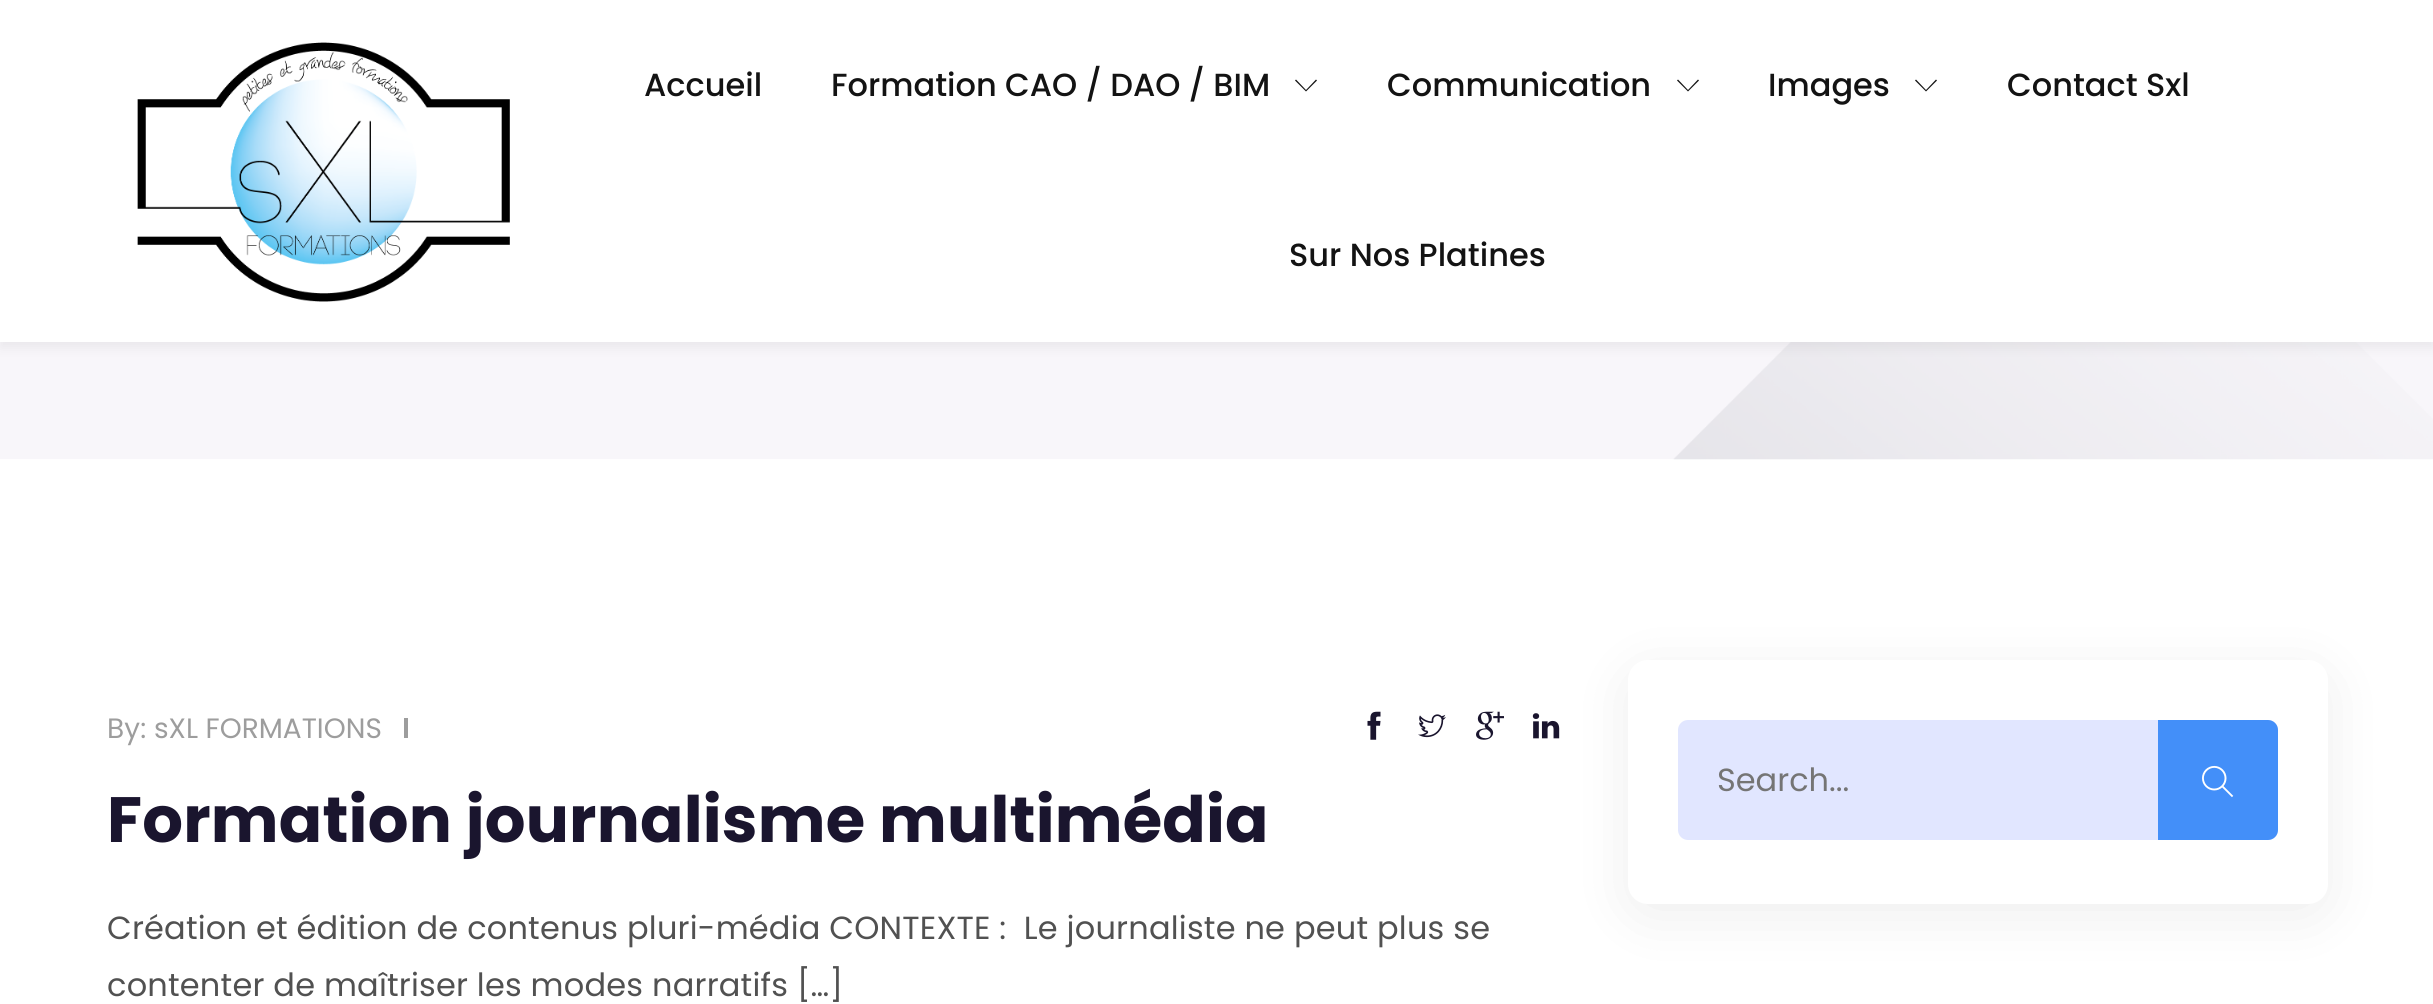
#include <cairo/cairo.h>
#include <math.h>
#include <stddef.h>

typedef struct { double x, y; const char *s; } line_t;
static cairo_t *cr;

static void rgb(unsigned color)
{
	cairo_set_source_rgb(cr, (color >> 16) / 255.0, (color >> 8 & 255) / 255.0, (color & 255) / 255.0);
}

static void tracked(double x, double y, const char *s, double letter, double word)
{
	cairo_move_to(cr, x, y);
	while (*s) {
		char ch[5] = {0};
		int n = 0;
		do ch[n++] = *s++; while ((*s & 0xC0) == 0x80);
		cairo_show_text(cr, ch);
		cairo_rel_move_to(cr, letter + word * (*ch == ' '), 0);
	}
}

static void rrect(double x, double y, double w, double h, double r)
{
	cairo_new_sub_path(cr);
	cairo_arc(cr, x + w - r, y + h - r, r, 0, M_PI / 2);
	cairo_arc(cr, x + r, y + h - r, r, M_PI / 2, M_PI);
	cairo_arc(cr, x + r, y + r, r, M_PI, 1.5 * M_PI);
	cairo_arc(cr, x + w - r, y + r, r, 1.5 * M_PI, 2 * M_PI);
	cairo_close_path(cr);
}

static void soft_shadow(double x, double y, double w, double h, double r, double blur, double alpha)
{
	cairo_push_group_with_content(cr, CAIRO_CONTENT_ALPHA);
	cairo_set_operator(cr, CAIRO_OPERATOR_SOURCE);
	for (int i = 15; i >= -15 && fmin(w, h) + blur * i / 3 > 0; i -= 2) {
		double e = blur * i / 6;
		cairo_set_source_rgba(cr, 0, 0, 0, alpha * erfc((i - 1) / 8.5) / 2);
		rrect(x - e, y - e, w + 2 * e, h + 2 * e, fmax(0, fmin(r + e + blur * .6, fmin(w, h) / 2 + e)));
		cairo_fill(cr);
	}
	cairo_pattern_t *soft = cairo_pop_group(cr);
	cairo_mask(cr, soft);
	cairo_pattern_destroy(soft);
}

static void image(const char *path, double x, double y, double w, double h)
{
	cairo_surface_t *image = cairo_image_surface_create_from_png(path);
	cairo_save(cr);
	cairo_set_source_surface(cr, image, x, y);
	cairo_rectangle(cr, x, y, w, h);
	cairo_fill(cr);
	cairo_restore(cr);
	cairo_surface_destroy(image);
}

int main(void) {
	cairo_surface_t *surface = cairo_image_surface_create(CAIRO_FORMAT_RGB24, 2433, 1004);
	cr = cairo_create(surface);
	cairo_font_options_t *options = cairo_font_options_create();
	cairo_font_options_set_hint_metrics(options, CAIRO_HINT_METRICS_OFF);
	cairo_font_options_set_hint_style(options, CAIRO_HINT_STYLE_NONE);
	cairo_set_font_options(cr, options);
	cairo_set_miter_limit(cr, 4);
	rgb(0xffffff);
	cairo_paint(cr);
	image("img/2.png", 0, 342, 2433, 118);
	rgb(0x000000);
	soft_shadow(0, 6, 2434, 342, 0, 6, 0.06);
	rgb(0xffffff);
	cairo_rectangle(cr, 0, 0, 2433, 342);
	cairo_fill(cr);
	image("img/1.png", 137, 42, 373, 260);
	rgb(0x131313);
	cairo_new_path(cr);
	cairo_move_to(cr, 1317, 80.5);
	cairo_line_to(cr, 1306, 91.5);
	cairo_line_to(cr, 1295, 80.5);
	cairo_line_to(cr, 1296, 79.5);
	cairo_line_to(cr, 1306, 90);
	cairo_line_to(cr, 1316, 79.5);
	cairo_close_path(cr);
	cairo_fill(cr);
	cairo_new_path(cr);
	cairo_move_to(cr, 1699, 80.5);
	cairo_line_to(cr, 1688, 91.5);
	cairo_line_to(cr, 1677, 80.5);
	cairo_line_to(cr, 1678, 79.5);
	cairo_line_to(cr, 1688, 90);
	cairo_line_to(cr, 1698, 79.5);
	cairo_close_path(cr);
	cairo_fill(cr);
	cairo_new_path(cr);
	cairo_move_to(cr, 1937, 80.5);
	cairo_line_to(cr, 1926, 91.5);
	cairo_line_to(cr, 1915, 80.5);
	cairo_line_to(cr, 1916, 79.5);
	cairo_line_to(cr, 1926, 90);
	cairo_line_to(cr, 1936, 79.5);
	cairo_close_path(cr);
	cairo_fill(cr);
	rgb(0x9d9d9d);
	cairo_rectangle(cr, 404, 718, 4, 20);
	cairo_fill(cr);
	image("img/3.png", 1367, 711, 14, 29);
	image("img/4.png", 1418, 714, 28, 24);
	image("img/5.png", 1476, 711, 28, 29);
	image("img/6.png", 1532, 713, 28, 26);
	rgb(0x000000);
	soft_shadow(1628, 672, 700, 244, 20, 30, 0.07);
	rgb(0xffffff);
	rrect(1628, 660, 700, 244, 20);
	cairo_fill(cr);
	rgb(0xe1e6ff);
	rrect(1678, 720, 600, 120, 10);
	cairo_fill(cr);
	rgb(0x438ff9);
	cairo_new_path(cr);
	cairo_move_to(cr, 2158, 720);
	cairo_line_to(cr, 2268, 720);
	cairo_curve_to(cr, 2273.5, 720, 2278, 724.5, 2278, 730);
	cairo_line_to(cr, 2278, 830);
	cairo_curve_to(cr, 2278, 835.5, 2273.5, 840, 2268, 840);
	cairo_line_to(cr, 2158, 840);
	cairo_close_path(cr);
	cairo_fill(cr);
	image("img/7.png", 2202, 765, 32, 33);
	cairo_select_font_face(cr, "Poppins Medium", CAIRO_FONT_SLANT_NORMAL, CAIRO_FONT_WEIGHT_NORMAL);
	cairo_set_font_size(cr, 32);
	rgb(0x131313);
	{
		static const line_t items[] = {
			{644, 96, "Accueil"},
			{831, 96, "Formation CAO / DAO / BIM"},
			{1387, 96, "Communication"},
			{1768, 96, "Images"},
			{2007, 96, "Contact Sxl"},
			{1289, 266, "Sur Nos Platines"},
		};
		for (size_t i = 0; i < sizeof items / sizeof *items; i++) {
			cairo_move_to(cr, items[i].x, items[i].y);
			cairo_show_text(cr, items[i].s);
		}
	}
	cairo_select_font_face(cr, "Poppins", CAIRO_FONT_SLANT_NORMAL, CAIRO_FONT_WEIGHT_NORMAL);
	cairo_set_font_size(cr, 28);
	rgb(0x9d9d9d);
	tracked(107, 738, "By:", 0.2, 0);
	cairo_move_to(cr, 154, 738);
	cairo_show_text(cr, "sXL FORMATIONS");
	cairo_select_font_face(cr, "Poppins", CAIRO_FONT_SLANT_NORMAL, CAIRO_FONT_WEIGHT_BOLD);
	cairo_set_font_size(cr, 64);
	rgb(0x1a152e);
	tracked(107, 842, "Formation journalisme multimédia", 0.2, 0);
	cairo_select_font_face(cr, "Poppins", CAIRO_FONT_SLANT_NORMAL, CAIRO_FONT_WEIGHT_NORMAL);
	cairo_set_font_size(cr, 32);
	rgb(0x515151);
	tracked(107, 939, "Création et édition de contenus pluri-média CONTEXTE :  Le journaliste ne peut plus se", 0.2, 0);
	tracked(107, 996, "contenter de maîtriser les modes narratifs […]", 0.2, 0);
	rgb(0x757575);
	cairo_move_to(cr, 1717, 791);
	cairo_show_text(cr, "Search...");
	cairo_surface_write_to_png(surface, "page.png");
	cairo_font_options_destroy(options);
	cairo_destroy(cr);
	cairo_surface_destroy(surface);
	return 0;
}
